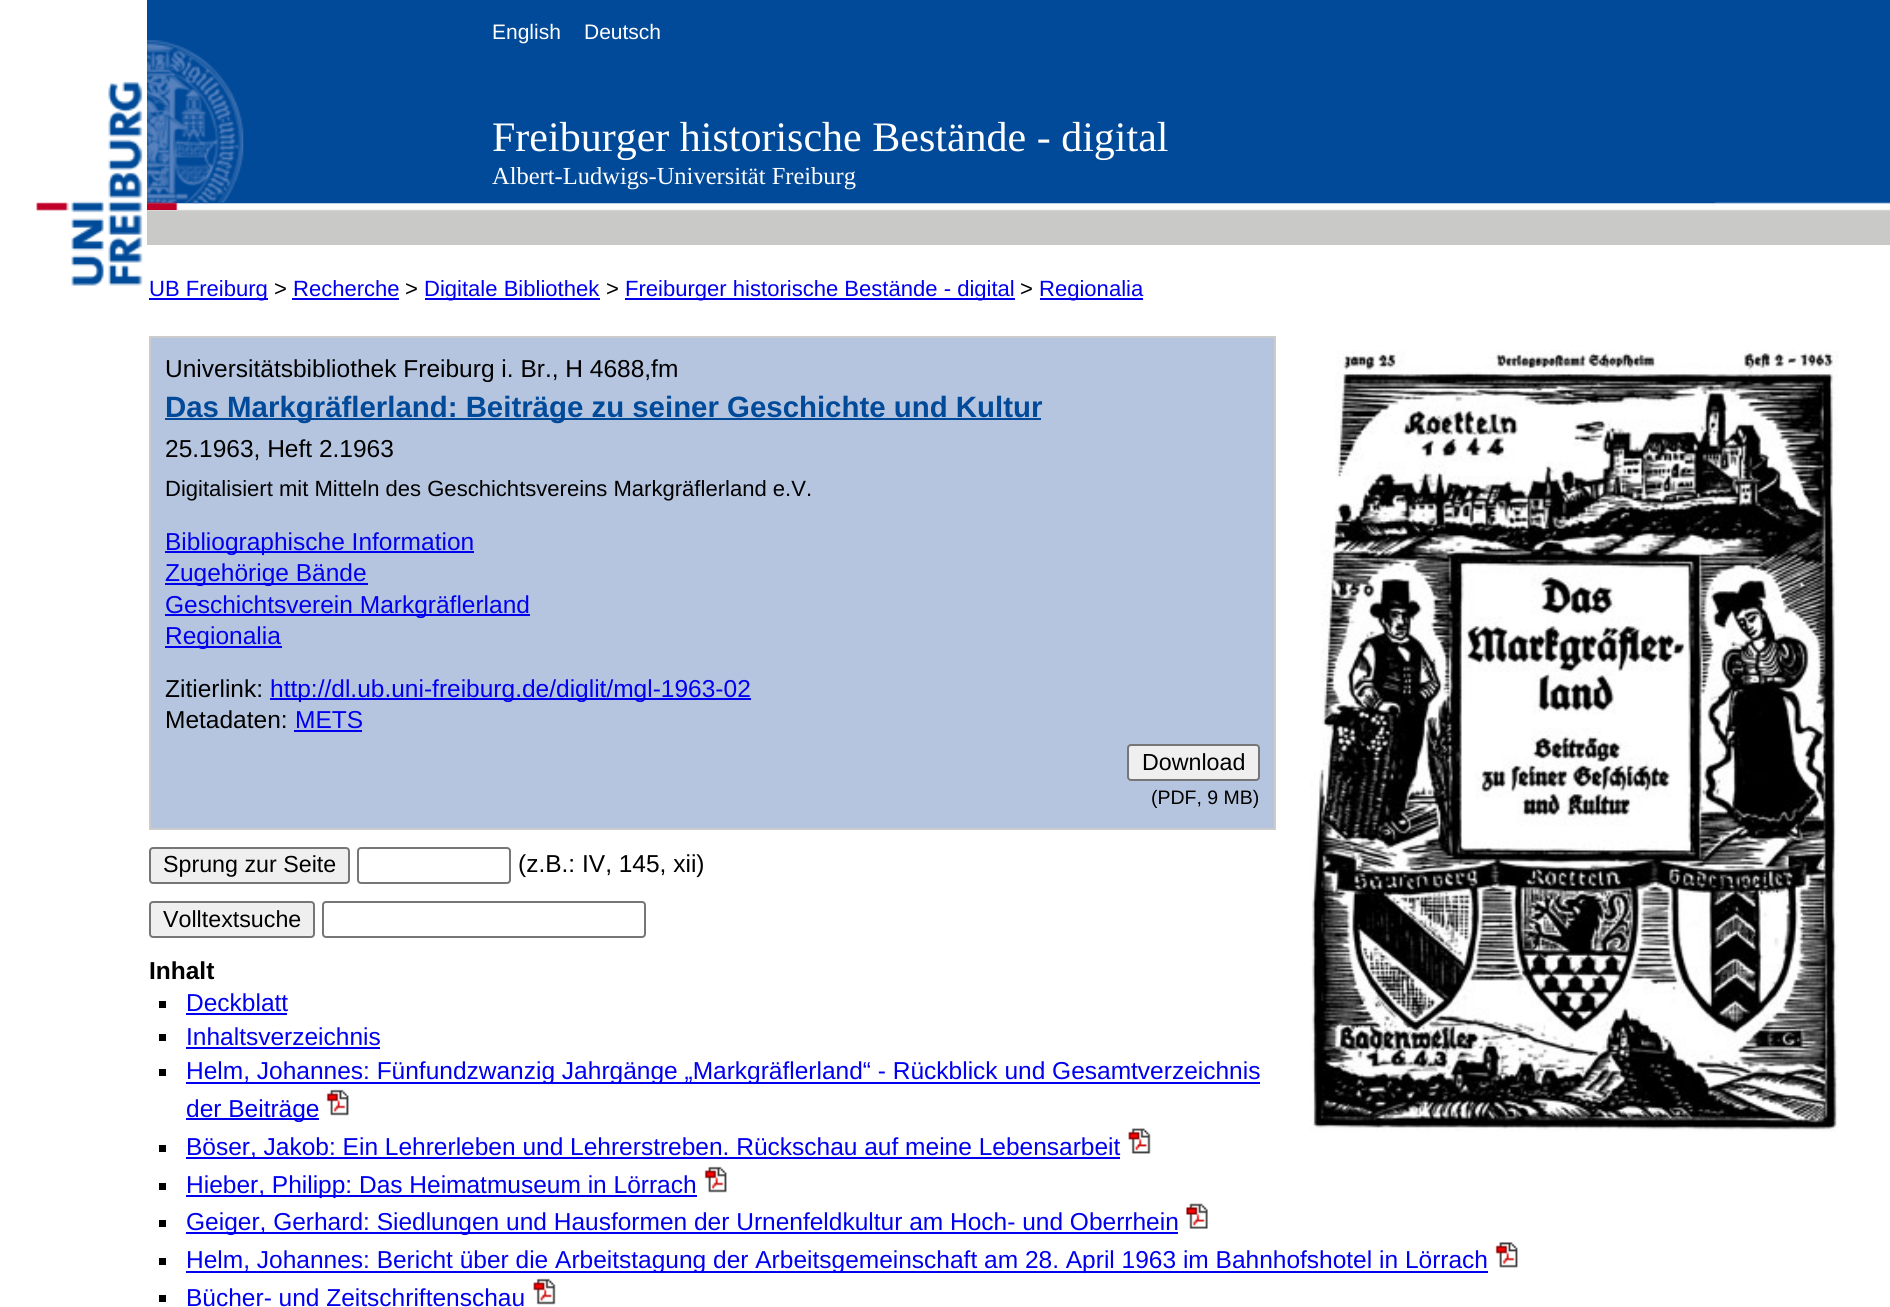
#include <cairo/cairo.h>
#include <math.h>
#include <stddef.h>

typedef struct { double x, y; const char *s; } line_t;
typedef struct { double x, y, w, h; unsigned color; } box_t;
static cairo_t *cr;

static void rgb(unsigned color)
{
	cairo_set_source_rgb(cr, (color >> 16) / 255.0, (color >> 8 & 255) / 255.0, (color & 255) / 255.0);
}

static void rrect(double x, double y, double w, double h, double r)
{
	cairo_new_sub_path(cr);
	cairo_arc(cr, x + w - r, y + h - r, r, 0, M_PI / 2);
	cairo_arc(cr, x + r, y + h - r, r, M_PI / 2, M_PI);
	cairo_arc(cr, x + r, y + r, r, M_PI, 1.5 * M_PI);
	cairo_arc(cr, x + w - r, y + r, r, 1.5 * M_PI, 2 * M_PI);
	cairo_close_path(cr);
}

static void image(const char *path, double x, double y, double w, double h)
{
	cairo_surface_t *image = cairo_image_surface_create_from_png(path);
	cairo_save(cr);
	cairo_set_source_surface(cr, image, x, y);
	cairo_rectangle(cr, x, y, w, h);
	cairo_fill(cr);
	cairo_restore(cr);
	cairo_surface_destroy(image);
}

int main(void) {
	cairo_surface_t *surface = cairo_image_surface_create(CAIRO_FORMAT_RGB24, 1890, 1307);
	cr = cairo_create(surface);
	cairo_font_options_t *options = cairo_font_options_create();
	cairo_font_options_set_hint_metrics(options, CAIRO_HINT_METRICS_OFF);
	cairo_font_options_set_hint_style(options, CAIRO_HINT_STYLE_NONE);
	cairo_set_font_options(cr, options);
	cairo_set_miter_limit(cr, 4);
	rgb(0xffffff);
	cairo_paint(cr);
	image("img/1.png", 147, 0, 1743, 245);
	rgb(0x004a99);
	cairo_rectangle(cr, 147, 202, 1568, 1);
	cairo_fill(cr);
	image("img/2.png", 36, 81, 107, 205);
	image("img/3.png", 147, 40, 97, 170);
	{
		static const box_t items[] = {
			{149, 298, 119, 2, 0x0000ee},
			{292, 298, 107, 2, 0x0000ee},
			{425, 298, 175, 2, 0x0000ee},
			{625, 298, 390, 2, 0x0000ee},
			{1040, 298, 103, 2, 0x0000ee},
		};
		for (size_t i = 0; i < sizeof items / sizeof *items; i++) {
			rgb(items[i].color);
			cairo_rectangle(cr, items[i].x, items[i].y, items[i].w, items[i].h);
			cairo_fill(cr);
		}
	}
	rgb(0xb6c5df);
	cairo_rectangle(cr, 150, 337, 1125, 492);
	cairo_fill_preserve(cr);
	rgb(0xcccccc);
	cairo_stroke(cr);
	{
		static const box_t items[] = {
			{165, 418, 876, 2, 0x004a99},
			{165, 551, 309, 2, 0x0000ee},
			{165, 583, 203, 2, 0x0000ee},
			{165, 614, 365, 2, 0x0000ee},
			{165, 646, 117, 2, 0x0000ee},
			{270, 698, 481, 2, 0x0000ee},
			{294, 730, 68, 2, 0x0000ee},
		};
		for (size_t i = 0; i < sizeof items / sizeof *items; i++) {
			rgb(items[i].color);
			cairo_rectangle(cr, items[i].x, items[i].y, items[i].w, items[i].h);
			cairo_fill(cr);
		}
	}
	rgb(0xefefef);
	rrect(1128, 745, 131, 35, 3);
	cairo_fill_preserve(cr);
	rgb(0x767676);
	cairo_stroke(cr);
	image("img/4.png", 1310, 350, 529, 782);
	rgb(0xefefef);
	rrect(150, 848, 199, 35, 3);
	cairo_fill_preserve(cr);
	rgb(0x767676);
	cairo_stroke(cr);
	rrect(358, 848, 152, 35, 3);
	cairo_stroke(cr);
	rgb(0xefefef);
	rrect(150, 902, 164, 35, 3);
	cairo_fill_preserve(cr);
	rgb(0x767676);
	cairo_stroke(cr);
	rrect(323, 902, 322, 35, 3);
	cairo_stroke(cr);
	{
		static const box_t items[] = {
			{159, 1001, 7, 7, 0x000000},
			{186, 1013, 101, 2, 0x0000ee},
			{159, 1034, 7, 7, 0x000000},
			{186, 1047, 194, 2, 0x0000ee},
			{159, 1069, 7, 7, 0x000000},
			{186, 1082, 1074, 2, 0x0000ee},
			{186, 1118, 133, 2, 0x0000ee},
		};
		for (size_t i = 0; i < sizeof items / sizeof *items; i++) {
			rgb(items[i].color);
			cairo_rectangle(cr, items[i].x, items[i].y, items[i].w, items[i].h);
			cairo_fill(cr);
		}
	}
	image("img/5.png", 326, 1089, 23, 27);
	rgb(0x000000);
	cairo_rectangle(cr, 159, 1145, 7, 7);
	cairo_fill(cr);
	rgb(0x0000ee);
	cairo_rectangle(cr, 186, 1157, 934, 2);
	cairo_fill(cr);
	image("img/6.png", 1128, 1128, 23, 26);
	rgb(0x000000);
	cairo_rectangle(cr, 159, 1183, 7, 7);
	cairo_fill(cr);
	rgb(0x0000ee);
	cairo_rectangle(cr, 186, 1195, 511, 2);
	cairo_fill(cr);
	image("img/7.png", 704, 1166, 23, 27);
	rgb(0x000000);
	cairo_rectangle(cr, 159, 1220, 7, 7);
	cairo_fill(cr);
	rgb(0x0000ee);
	cairo_rectangle(cr, 186, 1232, 992, 2);
	cairo_fill(cr);
	image("img/8.png", 1186, 1203, 22, 26);
	rgb(0x000000);
	cairo_rectangle(cr, 159, 1258, 7, 7);
	cairo_fill(cr);
	rgb(0x0000ee);
	cairo_rectangle(cr, 186, 1271, 1302, 2);
	cairo_fill(cr);
	image("img/9.png", 1495, 1242, 23, 26);
	rgb(0x000000);
	cairo_rectangle(cr, 159, 1295, 7, 7);
	cairo_fill(cr);
	image("img/10.png", 533, 1278, 23, 27);
	cairo_select_font_face(cr, "Liberation Sans", CAIRO_FONT_SLANT_NORMAL, CAIRO_FONT_WEIGHT_NORMAL);
	cairo_set_font_size(cr, 21);
	rgb(0xffffff);
	cairo_move_to(cr, 492, 39);
	cairo_show_text(cr, "English");
	cairo_move_to(cr, 584, 39);
	cairo_show_text(cr, "Deutsch");
	cairo_select_font_face(cr, "Liberation Serif", CAIRO_FONT_SLANT_NORMAL, CAIRO_FONT_WEIGHT_NORMAL);
	cairo_set_font_size(cr, 42);
	cairo_move_to(cr, 492, 151);
	cairo_show_text(cr, "Freiburger historische Bestände - digital");
	cairo_set_font_size(cr, 24.5);
	cairo_move_to(cr, 492, 184);
	cairo_show_text(cr, "Albert-Ludwigs-Universität Freiburg");
	cairo_select_font_face(cr, "Liberation Sans", CAIRO_FONT_SLANT_NORMAL, CAIRO_FONT_WEIGHT_NORMAL);
	cairo_set_font_size(cr, 22.05);
	rgb(0x0000ee);
	cairo_move_to(cr, 149, 296);
	cairo_show_text(cr, "UB Freiburg");
	rgb(0x000000);
	cairo_move_to(cr, 274, 296);
	cairo_show_text(cr, ">");
	rgb(0x0000ee);
	cairo_move_to(cr, 293, 296);
	cairo_show_text(cr, "Recherche");
	rgb(0x000000);
	cairo_move_to(cr, 405, 296);
	cairo_show_text(cr, ">");
	rgb(0x0000ee);
	cairo_move_to(cr, 424, 296);
	cairo_show_text(cr, "Digitale Bibliothek");
	rgb(0x000000);
	cairo_move_to(cr, 606, 296);
	cairo_show_text(cr, ">");
	rgb(0x0000ee);
	cairo_move_to(cr, 625, 296);
	cairo_show_text(cr, "Freiburger historische Bestände - digital");
	rgb(0x000000);
	cairo_move_to(cr, 1020, 296);
	cairo_show_text(cr, ">");
	rgb(0x0000ee);
	cairo_move_to(cr, 1039, 296);
	cairo_show_text(cr, "Regionalia");
	cairo_set_font_size(cr, 24.5);
	rgb(0x000000);
	cairo_move_to(cr, 165, 377);
	cairo_show_text(cr, "Universitätsbibliothek Freiburg i. Br., H 4688,fm");
	cairo_select_font_face(cr, "Liberation Sans", CAIRO_FONT_SLANT_NORMAL, CAIRO_FONT_WEIGHT_BOLD);
	cairo_set_font_size(cr, 29.4);
	rgb(0x004a99);
	cairo_move_to(cr, 165, 417);
	cairo_show_text(cr, "Das Markgräflerland: Beiträge zu seiner Geschichte und Kultur");
	cairo_select_font_face(cr, "Liberation Sans", CAIRO_FONT_SLANT_NORMAL, CAIRO_FONT_WEIGHT_NORMAL);
	cairo_set_font_size(cr, 24.5);
	rgb(0x000000);
	cairo_move_to(cr, 165, 457);
	cairo_show_text(cr, "25.1963, Heft 2.1963");
	cairo_set_font_size(cr, 22.05);
	cairo_move_to(cr, 165, 496);
	cairo_show_text(cr, "Digitalisiert mit Mitteln des Geschichtsvereins Markgräflerland e.V.");
	cairo_set_font_size(cr, 24.5);
	rgb(0x0000ee);
	{
		static const line_t items[] = {
			{165, 550, "Bibliographische Information"},
			{165, 581, "Zugehörige Bände"},
			{165, 613, "Geschichtsverein Markgräflerland"},
			{165, 644, "Regionalia"},
		};
		for (size_t i = 0; i < sizeof items / sizeof *items; i++) {
			cairo_move_to(cr, items[i].x, items[i].y);
			cairo_show_text(cr, items[i].s);
		}
	}
	rgb(0x000000);
	cairo_move_to(cr, 165, 697);
	cairo_show_text(cr, "Zitierlink:");
	rgb(0x0000ee);
	cairo_move_to(cr, 270, 697);
	cairo_show_text(cr, "http://dl.ub.uni-freiburg.de/diglit/mgl-1963-02");
	rgb(0x000000);
	cairo_move_to(cr, 165, 728);
	cairo_show_text(cr, "Metadaten:");
	rgb(0x0000ee);
	cairo_move_to(cr, 295, 728);
	cairo_show_text(cr, "METS");
	cairo_set_font_size(cr, 23.25);
	rgb(0x000000);
	cairo_move_to(cr, 1142, 770);
	cairo_show_text(cr, "Download");
	cairo_set_font_size(cr, 19.5);
	cairo_move_to(cr, 1151, 804);
	cairo_show_text(cr, "(PDF, 9 MB)");
	cairo_set_font_size(cr, 23.25);
	cairo_move_to(cr, 163, 872);
	cairo_show_text(cr, "Sprung zur Seite");
	cairo_set_font_size(cr, 24.5);
	cairo_move_to(cr, 518, 872);
	cairo_show_text(cr, "(z.B.: IV, 145, xii)");
	cairo_set_font_size(cr, 23.25);
	cairo_move_to(cr, 163, 927);
	cairo_show_text(cr, "Volltextsuche");
	cairo_select_font_face(cr, "Liberation Sans", CAIRO_FONT_SLANT_NORMAL, CAIRO_FONT_WEIGHT_BOLD);
	cairo_set_font_size(cr, 24.5);
	cairo_move_to(cr, 149, 979);
	cairo_show_text(cr, "Inhalt");
	cairo_select_font_face(cr, "Liberation Sans", CAIRO_FONT_SLANT_NORMAL, CAIRO_FONT_WEIGHT_NORMAL);
	rgb(0x0000ee);
	{
		static const line_t items[] = {
			{186, 1011, "Deckblatt"},
			{186, 1045, "Inhaltsverzeichnis"},
			{186, 1079, "Helm, Johannes: Fünfundzwanzig Jahrgänge „Markgräflerland“ - Rückblick und Gesamtverzeichnis"},
			{186, 1117, "der Beiträge"},
			{186, 1155, "Böser, Jakob: Ein Lehrerleben und Lehrerstreben. Rückschau auf meine Lebensarbeit"},
			{186, 1193, "Hieber, Philipp: Das Heimatmuseum in Lörrach"},
			{186, 1230, "Geiger, Gerhard: Siedlungen und Hausformen der Urnenfeldkultur am Hoch- und Oberrhein"},
			{186, 1268, "Helm, Johannes: Bericht über die Arbeitstagung der Arbeitsgemeinschaft am 28. April 1963 im Bahnhofshotel in Lörrach"},
			{186, 1306, "Bücher- und Zeitschriftenschau"},
		};
		for (size_t i = 0; i < sizeof items / sizeof *items; i++) {
			cairo_move_to(cr, items[i].x, items[i].y);
			cairo_show_text(cr, items[i].s);
		}
	}
	cairo_surface_write_to_png(surface, "page.png");
	cairo_font_options_destroy(options);
	cairo_destroy(cr);
	cairo_surface_destroy(surface);
	return 0;
}
